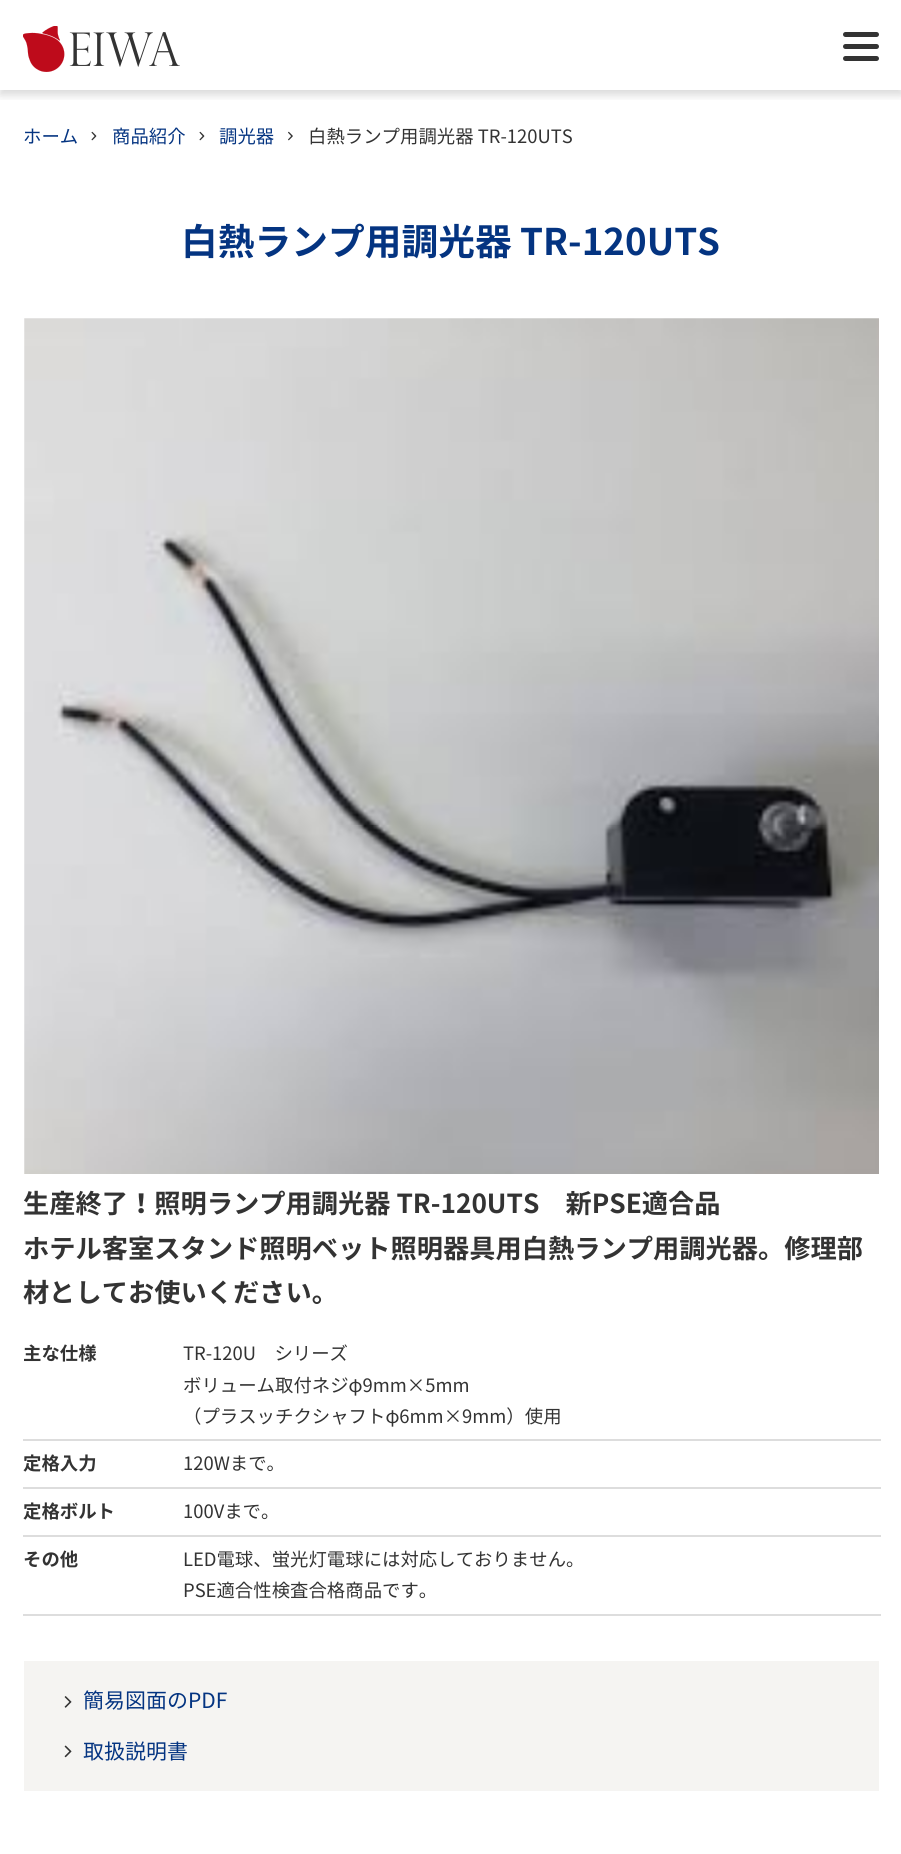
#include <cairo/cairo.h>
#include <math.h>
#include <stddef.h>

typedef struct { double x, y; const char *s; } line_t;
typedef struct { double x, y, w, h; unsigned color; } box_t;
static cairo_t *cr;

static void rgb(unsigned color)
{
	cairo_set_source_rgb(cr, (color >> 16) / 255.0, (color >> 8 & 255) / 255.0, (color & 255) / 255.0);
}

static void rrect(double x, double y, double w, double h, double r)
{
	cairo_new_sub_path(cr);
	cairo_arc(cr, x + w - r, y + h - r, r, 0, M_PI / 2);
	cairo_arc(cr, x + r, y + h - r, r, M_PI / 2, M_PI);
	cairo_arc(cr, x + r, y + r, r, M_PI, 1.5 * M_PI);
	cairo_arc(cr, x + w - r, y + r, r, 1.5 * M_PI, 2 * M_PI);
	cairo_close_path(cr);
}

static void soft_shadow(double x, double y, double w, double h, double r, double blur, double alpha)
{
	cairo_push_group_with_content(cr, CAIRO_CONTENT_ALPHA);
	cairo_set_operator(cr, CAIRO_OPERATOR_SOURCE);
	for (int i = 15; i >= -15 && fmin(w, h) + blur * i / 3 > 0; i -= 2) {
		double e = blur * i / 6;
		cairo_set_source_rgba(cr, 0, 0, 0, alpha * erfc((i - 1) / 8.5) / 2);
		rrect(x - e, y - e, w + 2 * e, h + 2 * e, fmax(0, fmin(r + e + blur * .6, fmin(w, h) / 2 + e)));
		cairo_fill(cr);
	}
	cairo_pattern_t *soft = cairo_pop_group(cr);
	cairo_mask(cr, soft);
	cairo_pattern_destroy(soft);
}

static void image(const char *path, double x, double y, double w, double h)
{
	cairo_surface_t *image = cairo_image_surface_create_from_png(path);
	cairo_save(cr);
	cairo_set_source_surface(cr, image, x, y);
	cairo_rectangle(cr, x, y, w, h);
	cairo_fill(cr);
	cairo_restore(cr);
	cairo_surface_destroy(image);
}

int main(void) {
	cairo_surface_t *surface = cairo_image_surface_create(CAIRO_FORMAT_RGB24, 901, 1854);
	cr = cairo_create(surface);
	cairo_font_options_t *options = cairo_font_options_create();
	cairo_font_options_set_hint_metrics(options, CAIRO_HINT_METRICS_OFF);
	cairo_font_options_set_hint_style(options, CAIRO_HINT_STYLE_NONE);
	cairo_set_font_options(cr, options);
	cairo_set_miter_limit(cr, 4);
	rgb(0xffffff);
	cairo_paint(cr);
	cairo_save(cr);
	cairo_rectangle(cr, 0, 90, 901, 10);
	cairo_clip(cr);
	rgb(0x000000);
	soft_shadow(0, 5, 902, 90, 0, 4.5, 0.15);
	cairo_restore(cr);
	image("img/1.png", 23, 26, 157, 46);
	rgb(0x333333);
	rrect(843, 32, 36, 5, 2.5);
	cairo_fill(cr);
	rrect(843, 44, 36, 5, 2.5);
	cairo_fill(cr);
	rrect(843, 56, 36, 5, 2.5);
	cairo_fill(cr);
	image("img/2.png", 91, 131, 6, 10);
	image("img/2.png", 199, 131, 6, 10);
	image("img/3.png", 288, 131, 5, 10);
	image("img/4.png", 24, 318, 855, 856);
	{
		static const box_t items[] = {
			{23, 1439, 858, 2, 0xdddddd},
			{23, 1487, 858, 2, 0xdddddd},
			{23, 1535, 858, 2, 0xdddddd},
			{23, 1614, 858, 2, 0xdddddd},
			{24, 1661, 855, 130, 0xf5f4f2},
		};
		for (size_t i = 0; i < sizeof items / sizeof *items; i++) {
			rgb(items[i].color);
			cairo_rectangle(cr, items[i].x, items[i].y, items[i].w, items[i].h);
			cairo_fill(cr);
		}
	}
	image("img/5.png", 64, 1696, 8, 12);
	image("img/6.png", 64, 1745, 8, 13);
	cairo_select_font_face(cr, "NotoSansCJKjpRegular", CAIRO_FONT_SLANT_NORMAL, CAIRO_FONT_WEIGHT_NORMAL);
	cairo_set_font_size(cr, 18.4);
	rgb(0x043481);
	{
		static const line_t items[] = {
			{23, 143, "ホーム"},
			{112, 143, "商品紹介"},
			{219, 143, "調光器"},
		};
		for (size_t i = 0; i < sizeof items / sizeof *items; i++) {
			cairo_move_to(cr, items[i].x, items[i].y);
			cairo_show_text(cr, items[i].s);
		}
	}
	rgb(0x333333);
	cairo_move_to(cr, 308, 143);
	cairo_show_text(cr, "白熱ランプ用調光器 TR-120UTS");
	cairo_select_font_face(cr, "Noto Sans CJK JP", CAIRO_FONT_SLANT_NORMAL, CAIRO_FONT_WEIGHT_BOLD);
	cairo_set_font_size(cr, 36.75);
	rgb(0x043481);
	cairo_move_to(cr, 181, 255);
	cairo_show_text(cr, "白熱ランプ用調光器 TR-120UTS");
	cairo_set_font_size(cr, 26.25);
	rgb(0x333333);
	{
		static const line_t items[] = {
			{23, 1213, "生産終了！照明ランプ用調光器 TR-120UTS　新PSE適合品"},
			{23, 1258, "ホテル客室スタンド照明ベット照明器具用白熱ランプ用調光器。修理部"},
			{23, 1302, "材としてお使いください。"},
		};
		for (size_t i = 0; i < sizeof items / sizeof *items; i++) {
			cairo_move_to(cr, items[i].x, items[i].y);
			cairo_show_text(cr, items[i].s);
		}
	}
	cairo_set_font_size(cr, 18.4);
	cairo_move_to(cr, 23, 1360);
	cairo_show_text(cr, "主な仕様");
	cairo_select_font_face(cr, "NotoSansCJKjpRegular", CAIRO_FONT_SLANT_NORMAL, CAIRO_FONT_WEIGHT_NORMAL);
	{
		static const line_t items[] = {
			{183, 1360, "TR-120U　シリーズ"},
			{183, 1392, "ボリューム取付ネジφ9mm×5mm"},
			{183, 1423, "（プラスッチクシャフトφ6mm×9mm）使用"},
		};
		for (size_t i = 0; i < sizeof items / sizeof *items; i++) {
			cairo_move_to(cr, items[i].x, items[i].y);
			cairo_show_text(cr, items[i].s);
		}
	}
	cairo_select_font_face(cr, "Noto Sans CJK JP", CAIRO_FONT_SLANT_NORMAL, CAIRO_FONT_WEIGHT_BOLD);
	cairo_move_to(cr, 23, 1470);
	cairo_show_text(cr, "定格入力");
	cairo_select_font_face(cr, "NotoSansCJKjpRegular", CAIRO_FONT_SLANT_NORMAL, CAIRO_FONT_WEIGHT_NORMAL);
	cairo_move_to(cr, 183, 1470);
	cairo_show_text(cr, "120Wまで。");
	cairo_select_font_face(cr, "Noto Sans CJK JP", CAIRO_FONT_SLANT_NORMAL, CAIRO_FONT_WEIGHT_BOLD);
	cairo_move_to(cr, 23, 1518);
	cairo_show_text(cr, "定格ボルト");
	cairo_select_font_face(cr, "NotoSansCJKjpRegular", CAIRO_FONT_SLANT_NORMAL, CAIRO_FONT_WEIGHT_NORMAL);
	cairo_move_to(cr, 183, 1518);
	cairo_show_text(cr, "100Vまで。");
	cairo_select_font_face(cr, "Noto Sans CJK JP", CAIRO_FONT_SLANT_NORMAL, CAIRO_FONT_WEIGHT_BOLD);
	cairo_move_to(cr, 23, 1566);
	cairo_show_text(cr, "その他");
	cairo_select_font_face(cr, "NotoSansCJKjpRegular", CAIRO_FONT_SLANT_NORMAL, CAIRO_FONT_WEIGHT_NORMAL);
	cairo_move_to(cr, 183, 1566);
	cairo_show_text(cr, "LED電球、蛍光灯電球には対応しておりません。");
	cairo_move_to(cr, 183, 1597);
	cairo_show_text(cr, "PSE適合性検査合格商品です。");
	cairo_set_font_size(cr, 21);
	rgb(0x043481);
	cairo_move_to(cr, 83, 1708);
	cairo_show_text(cr, "簡易図面のPDF");
	cairo_move_to(cr, 83, 1759);
	cairo_show_text(cr, "取扱説明書");
	cairo_surface_write_to_png(surface, "page.png");
	cairo_font_options_destroy(options);
	cairo_destroy(cr);
	cairo_surface_destroy(surface);
	return 0;
}
